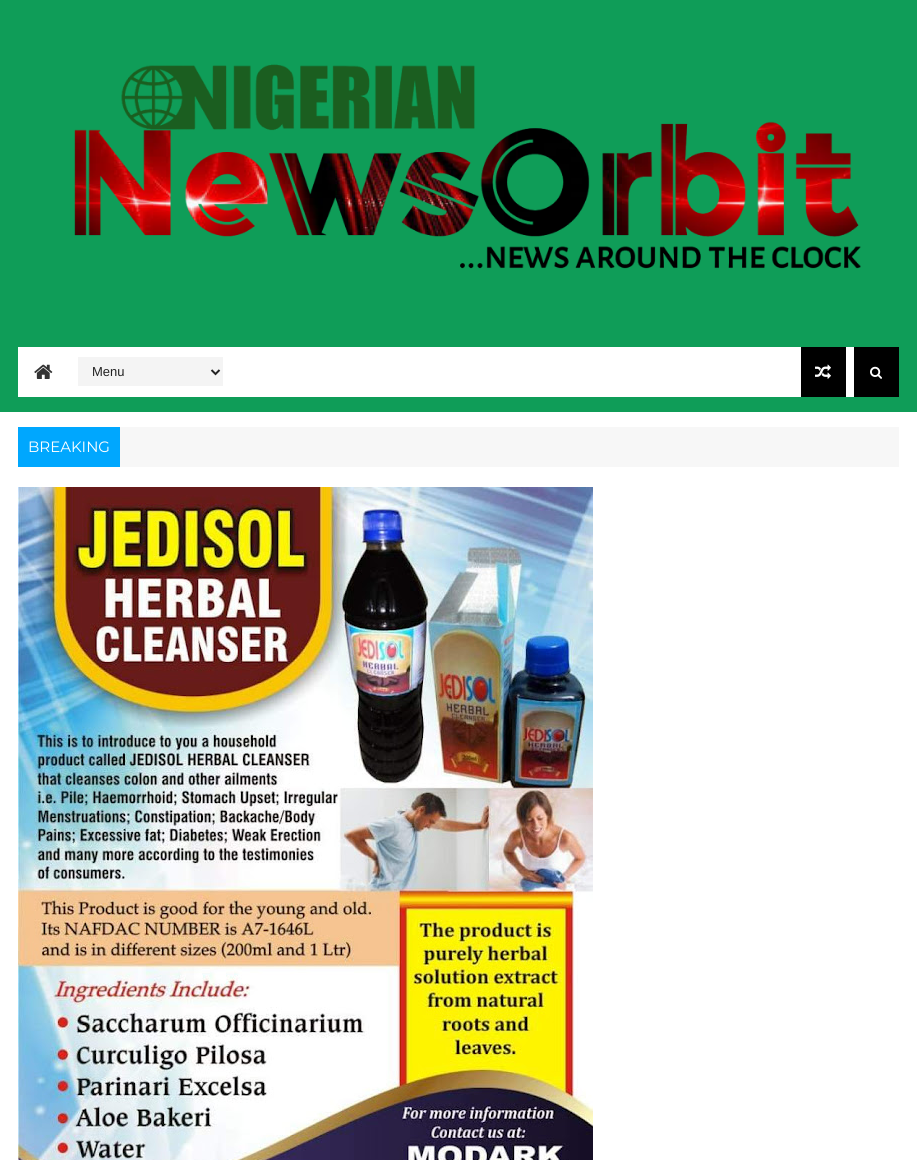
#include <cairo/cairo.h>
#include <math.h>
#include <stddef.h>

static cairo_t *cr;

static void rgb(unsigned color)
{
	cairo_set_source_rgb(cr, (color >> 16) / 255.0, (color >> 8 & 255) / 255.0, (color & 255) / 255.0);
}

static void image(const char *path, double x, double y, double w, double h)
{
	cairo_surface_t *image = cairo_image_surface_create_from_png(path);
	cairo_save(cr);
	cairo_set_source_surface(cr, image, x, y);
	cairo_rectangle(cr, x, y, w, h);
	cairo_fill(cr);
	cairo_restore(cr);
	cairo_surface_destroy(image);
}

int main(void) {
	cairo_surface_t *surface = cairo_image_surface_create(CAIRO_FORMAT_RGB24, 917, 1160);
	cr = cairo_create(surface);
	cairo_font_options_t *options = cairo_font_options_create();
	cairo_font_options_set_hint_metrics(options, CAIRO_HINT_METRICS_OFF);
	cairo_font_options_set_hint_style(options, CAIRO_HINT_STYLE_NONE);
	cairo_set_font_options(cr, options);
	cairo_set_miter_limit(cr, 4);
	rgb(0xffffff);
	cairo_paint(cr);
	rgb(0x0f9d58);
	cairo_rectangle(cr, 0, 0, 917, 412);
	cairo_fill(cr);
	image("img/1.png", 74, 64, 787, 205);
	rgb(0xffffff);
	cairo_rectangle(cr, 18, 347, 836, 50);
	cairo_fill(cr);
	image("img/2.png", 34, 364, 19, 15);
	rgb(0xf4f4f4);
	cairo_rectangle(cr, 78, 357, 145, 29);
	cairo_fill(cr);
	cairo_new_path(cr);
	cairo_move_to(cr, 211.5, 370);
	cairo_line_to(cr, 215.5, 374);
	cairo_line_to(cr, 219.5, 370);
	rgb(0x222222);
	cairo_stroke(cr);
	rgb(0x000000);
	cairo_rectangle(cr, 801, 347, 45, 50);
	cairo_fill(cr);
	image("img/3.png", 815, 364, 16, 15);
	cairo_rectangle(cr, 854, 347, 45, 50);
	cairo_fill(cr);
	image("img/4.png", 870, 366, 12, 13);
	rgb(0xf7f7f7);
	cairo_rectangle(cr, 120, 427, 779, 40);
	cairo_fill(cr);
	rgb(0x00a7fe);
	cairo_rectangle(cr, 18, 427, 102, 40);
	cairo_fill(cr);
	image("img/5.png", 18, 487, 575, 673);
	cairo_select_font_face(cr, "Liberation Sans", CAIRO_FONT_SLANT_NORMAL, CAIRO_FONT_WEIGHT_NORMAL);
	cairo_set_font_size(cr, 13);
	rgb(0x222222);
	cairo_move_to(cr, 92, 376);
	cairo_show_text(cr, "Menu");
	cairo_select_font_face(cr, "Montserrat", CAIRO_FONT_SLANT_NORMAL, CAIRO_FONT_WEIGHT_NORMAL);
	cairo_set_font_size(cr, 15);
	rgb(0xffffff);
	cairo_move_to(cr, 28, 452);
	cairo_show_text(cr, "BREAKING");
	cairo_surface_write_to_png(surface, "page.png");
	cairo_font_options_destroy(options);
	cairo_destroy(cr);
	cairo_surface_destroy(surface);
	return 0;
}
